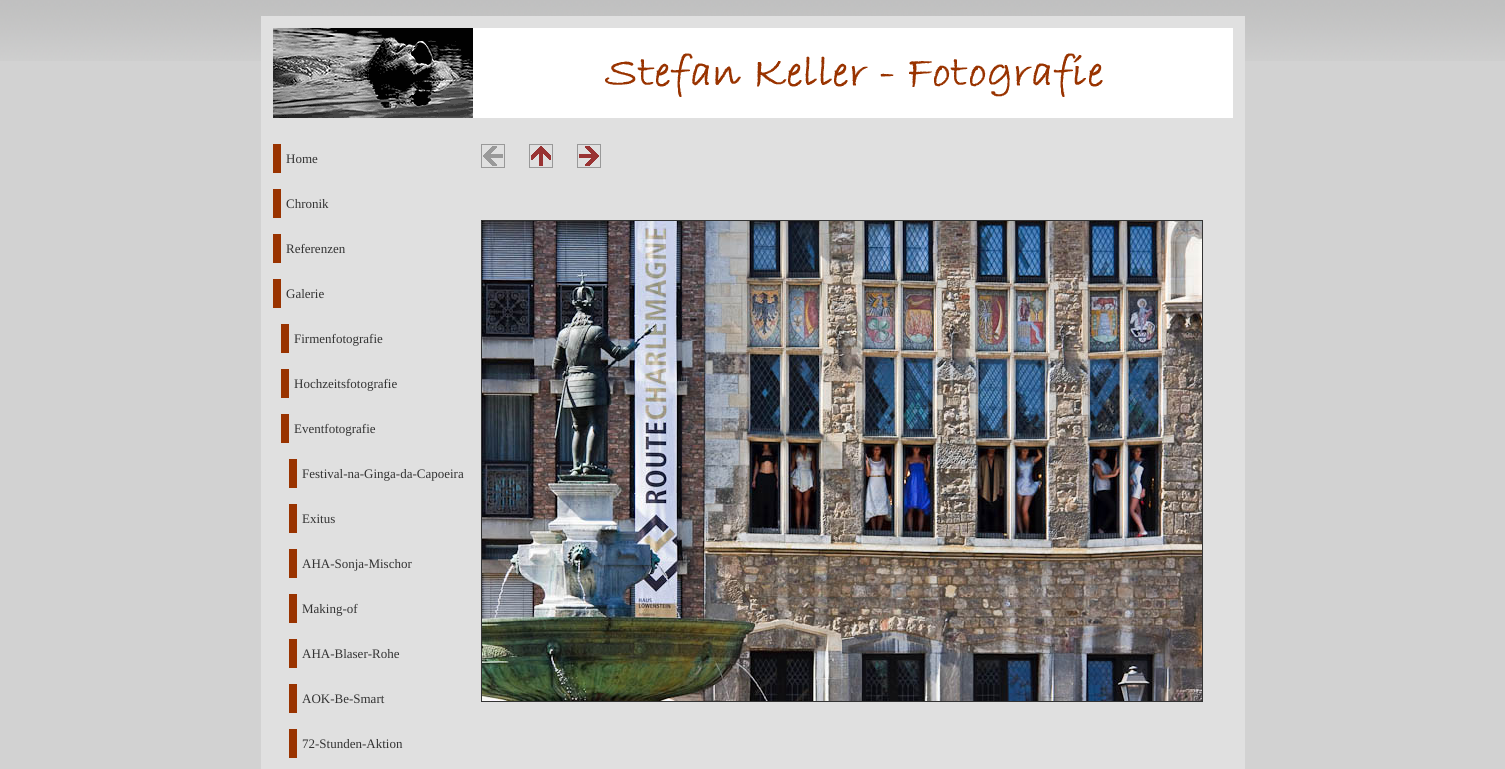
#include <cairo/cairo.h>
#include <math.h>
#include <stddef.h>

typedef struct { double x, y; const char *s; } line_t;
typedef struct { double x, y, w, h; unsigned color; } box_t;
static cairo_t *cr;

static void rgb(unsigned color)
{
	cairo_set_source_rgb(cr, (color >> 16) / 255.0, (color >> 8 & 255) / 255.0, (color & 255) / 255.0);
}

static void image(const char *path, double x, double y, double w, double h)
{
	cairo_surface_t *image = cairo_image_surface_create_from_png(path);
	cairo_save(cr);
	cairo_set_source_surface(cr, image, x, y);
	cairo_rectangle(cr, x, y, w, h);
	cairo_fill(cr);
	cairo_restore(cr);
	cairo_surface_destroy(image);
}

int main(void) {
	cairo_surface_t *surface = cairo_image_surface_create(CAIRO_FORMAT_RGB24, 1505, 769);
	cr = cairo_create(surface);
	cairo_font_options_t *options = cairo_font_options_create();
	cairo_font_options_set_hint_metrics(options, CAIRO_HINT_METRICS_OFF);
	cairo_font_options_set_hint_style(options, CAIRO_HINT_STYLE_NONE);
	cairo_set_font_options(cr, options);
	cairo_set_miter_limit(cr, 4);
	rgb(0xd2d2d2);
	cairo_paint(cr);
	image("img/1.png", 0, 0, 1505, 61);
	rgb(0xe0e0e0);
	cairo_rectangle(cr, 261, 16, 984, 753);
	cairo_fill(cr);
	image("img/2.png", 273, 28, 960, 90);
	{
		static const box_t items[] = {
			{273, 144, 8, 29, 0x993300},
			{273, 189, 8, 29, 0x993300},
			{273, 234, 8, 29, 0x993300},
			{273, 279, 8, 29, 0x993300},
			{281, 324, 8, 29, 0x993300},
			{281, 369, 8, 29, 0x993300},
			{281, 414, 8, 29, 0x993300},
			{289, 459, 8, 29, 0x993300},
			{289, 504, 8, 29, 0x993300},
			{289, 549, 8, 29, 0x993300},
			{289, 594, 8, 29, 0x993300},
			{289, 639, 8, 29, 0x993300},
			{289, 684, 8, 29, 0x993300},
			{289, 729, 8, 29, 0x993300},
		};
		for (size_t i = 0; i < sizeof items / sizeof *items; i++) {
			rgb(items[i].color);
			cairo_rectangle(cr, items[i].x, items[i].y, items[i].w, items[i].h);
			cairo_fill(cr);
		}
	}
	image("img/3.png", 481, 144, 24, 24);
	image("img/4.png", 529, 144, 24, 24);
	image("img/5.png", 577, 144, 24, 24);
	cairo_rectangle(cr, 481.5, 220.5, 721, 481);
	rgb(0x333333);
	cairo_set_line_width(cr, 1);
	cairo_stroke(cr);
	image("img/6.png", 482, 221, 720, 480);
	cairo_select_font_face(cr, "Liberation Serif", CAIRO_FONT_SLANT_NORMAL, CAIRO_FONT_WEIGHT_NORMAL);
	cairo_set_font_size(cr, 13);
	{
		static const line_t items[] = {
			{286, 163, "Home"},
			{286, 208, "Chronik"},
			{286, 253, "Referenzen"},
			{286, 298, "Galerie"},
			{294, 343, "Firmenfotografie"},
			{294, 388, "Hochzeitsfotografie"},
			{294, 433, "Eventfotografie"},
			{302, 478, "Festival-na-Ginga-da-Capoeira"},
			{302, 523, "Exitus"},
			{302, 568, "AHA-Sonja-Mischor"},
			{302, 613, "Making-of"},
			{302, 658, "AHA-Blaser-Rohe"},
			{302, 703, "AOK-Be-Smart"},
			{302, 748, "72-Stunden-Aktion"},
		};
		for (size_t i = 0; i < sizeof items / sizeof *items; i++) {
			cairo_move_to(cr, items[i].x, items[i].y);
			cairo_show_text(cr, items[i].s);
		}
	}
	cairo_surface_write_to_png(surface, "page.png");
	cairo_font_options_destroy(options);
	cairo_destroy(cr);
	cairo_surface_destroy(surface);
	return 0;
}
